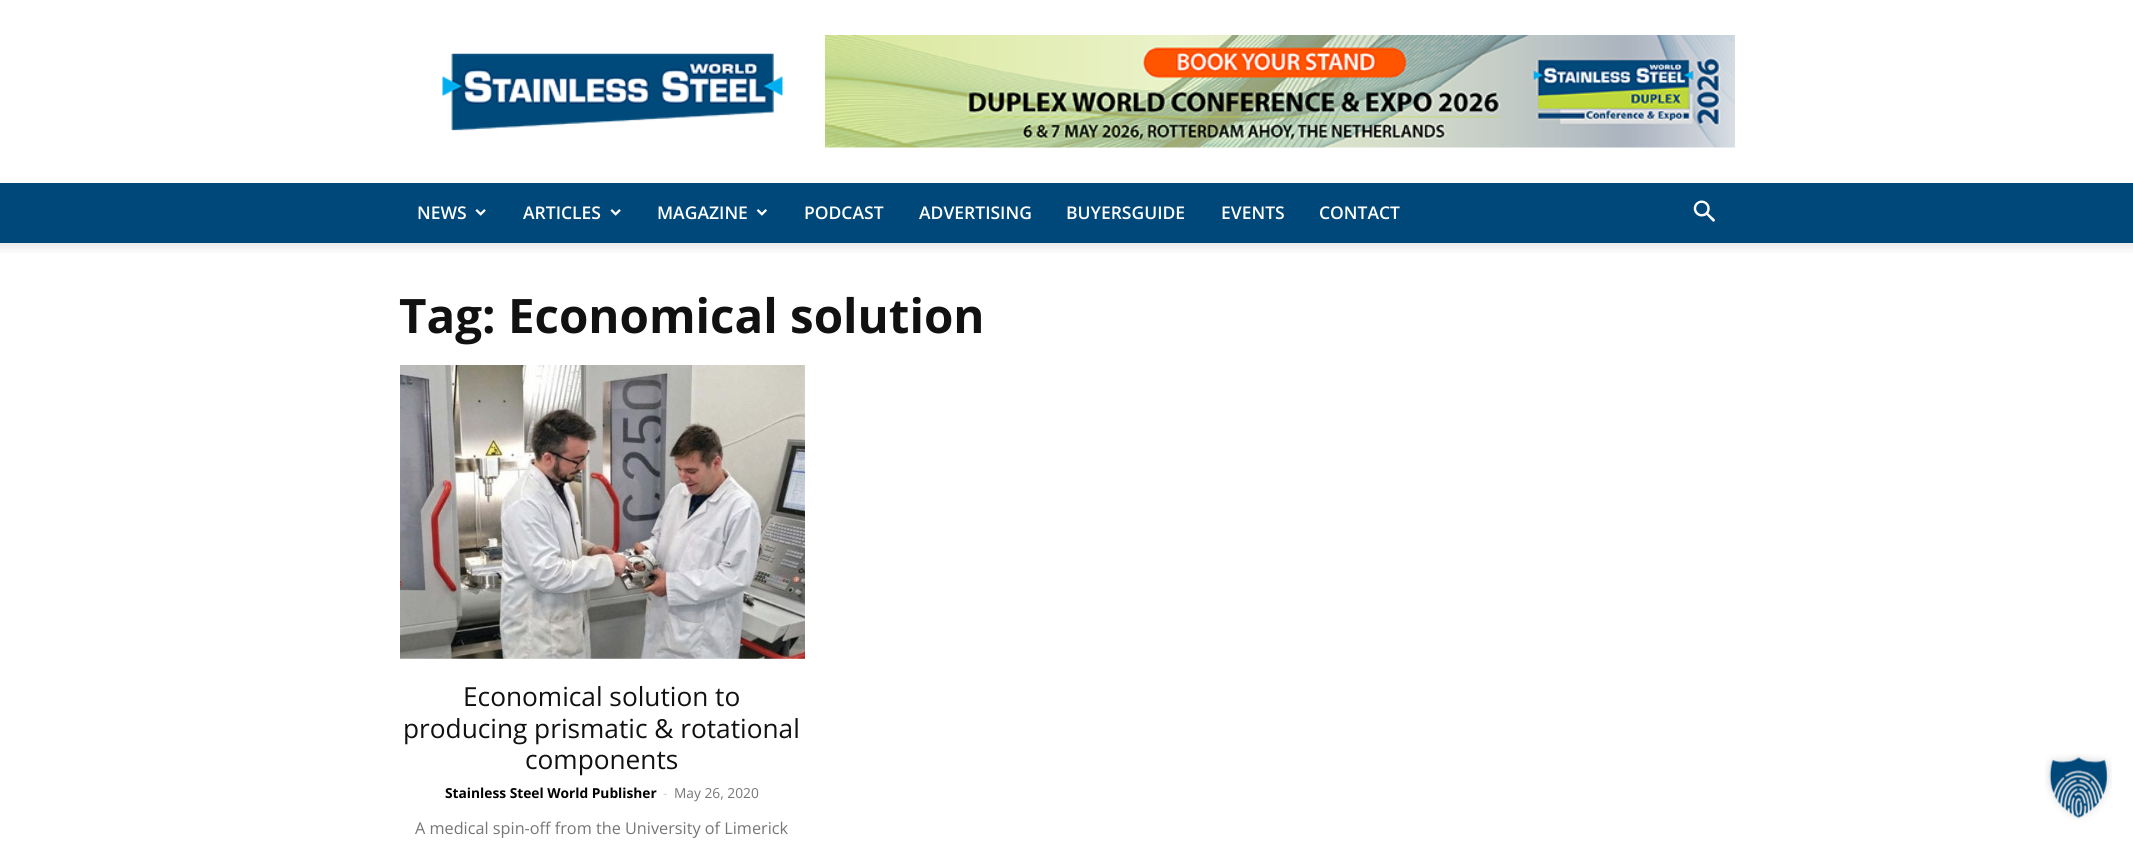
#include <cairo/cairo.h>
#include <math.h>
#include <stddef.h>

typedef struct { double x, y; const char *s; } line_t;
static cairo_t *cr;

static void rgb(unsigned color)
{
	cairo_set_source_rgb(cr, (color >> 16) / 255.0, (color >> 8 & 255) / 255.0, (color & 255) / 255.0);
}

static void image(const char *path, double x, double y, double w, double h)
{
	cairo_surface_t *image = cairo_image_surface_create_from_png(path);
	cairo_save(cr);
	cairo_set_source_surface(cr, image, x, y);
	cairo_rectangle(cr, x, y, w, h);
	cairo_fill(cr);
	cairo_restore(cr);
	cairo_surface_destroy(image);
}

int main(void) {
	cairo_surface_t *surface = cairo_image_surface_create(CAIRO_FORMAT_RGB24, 2133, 842);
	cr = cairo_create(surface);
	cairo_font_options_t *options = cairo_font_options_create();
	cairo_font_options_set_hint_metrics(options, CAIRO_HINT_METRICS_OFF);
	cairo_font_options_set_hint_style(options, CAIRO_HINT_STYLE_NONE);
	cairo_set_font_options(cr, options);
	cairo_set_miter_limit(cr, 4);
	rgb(0xffffff);
	cairo_paint(cr);
	image("img/1.png", 442, 53, 341, 78);
	image("img/2.png", 825, 35, 910, 113);
	rgb(0x00487a);
	cairo_rectangle(cr, 0, 183, 2133, 60);
	cairo_fill(cr);
	image("img/3.png", 475, 209, 11, 7);
	image("img/3.png", 610, 209, 11, 7);
	image("img/4.png", 756, 209, 11, 7);
	image("img/5.png", 1693, 200, 22, 22);
	image("img/6.png", 0, 242, 2133, 11);
	image("img/7.png", 400, 365, 405, 294);
	image("img/8.png", 2045, 754, 67, 66);
	cairo_select_font_face(cr, "Open Sans SemiBold", CAIRO_FONT_SLANT_NORMAL, CAIRO_FONT_WEIGHT_NORMAL);
	cairo_set_font_size(cr, 17.5);
	rgb(0xffffff);
	{
		static const line_t items[] = {
			{417, 219, "NEWS"},
			{523, 219, "ARTICLES"},
			{657, 219, "MAGAZINE"},
			{804, 219, "PODCAST"},
			{919, 219, "ADVERTISING"},
			{1066, 219, "BUYERSGUIDE"},
			{1221, 219, "EVENTS"},
			{1319, 219, "CONTACT"},
		};
		for (size_t i = 0; i < sizeof items / sizeof *items; i++) {
			cairo_move_to(cr, items[i].x, items[i].y);
			cairo_show_text(cr, items[i].s);
		}
	}
	cairo_select_font_face(cr, "Open Sans", CAIRO_FONT_SLANT_NORMAL, CAIRO_FONT_WEIGHT_BOLD);
	cairo_set_font_size(cr, 47.5);
	rgb(0x111111);
	cairo_move_to(cr, 399, 333);
	cairo_show_text(cr, "Tag: Economical solution");
	cairo_select_font_face(cr, "Open Sans", CAIRO_FONT_SLANT_NORMAL, CAIRO_FONT_WEIGHT_NORMAL);
	cairo_set_font_size(cr, 26.25);
	{
		static const line_t items[] = {
			{463, 706, "Economical solution to"},
			{403, 738, "producing prismatic & rotational"},
			{525, 769, "components"},
		};
		for (size_t i = 0; i < sizeof items / sizeof *items; i++) {
			cairo_move_to(cr, items[i].x, items[i].y);
			cairo_show_text(cr, items[i].s);
		}
	}
	cairo_select_font_face(cr, "Open Sans", CAIRO_FONT_SLANT_NORMAL, CAIRO_FONT_WEIGHT_BOLD);
	cairo_set_font_size(cr, 13.75);
	rgb(0x000000);
	cairo_move_to(cr, 445, 798);
	cairo_show_text(cr, "Stainless Steel World Publisher");
	cairo_select_font_face(cr, "Open Sans", CAIRO_FONT_SLANT_NORMAL, CAIRO_FONT_WEIGHT_NORMAL);
	rgb(0xcccccc);
	cairo_move_to(cr, 663, 798);
	cairo_show_text(cr, "-");
	rgb(0x767676);
	cairo_move_to(cr, 674, 798);
	cairo_show_text(cr, "May 26, 2020");
	cairo_set_font_size(cr, 16.25);
	cairo_move_to(cr, 415, 834);
	cairo_show_text(cr, "A medical spin-off from the University of Limerick");
	cairo_surface_write_to_png(surface, "page.png");
	cairo_font_options_destroy(options);
	cairo_destroy(cr);
	cairo_surface_destroy(surface);
	return 0;
}
